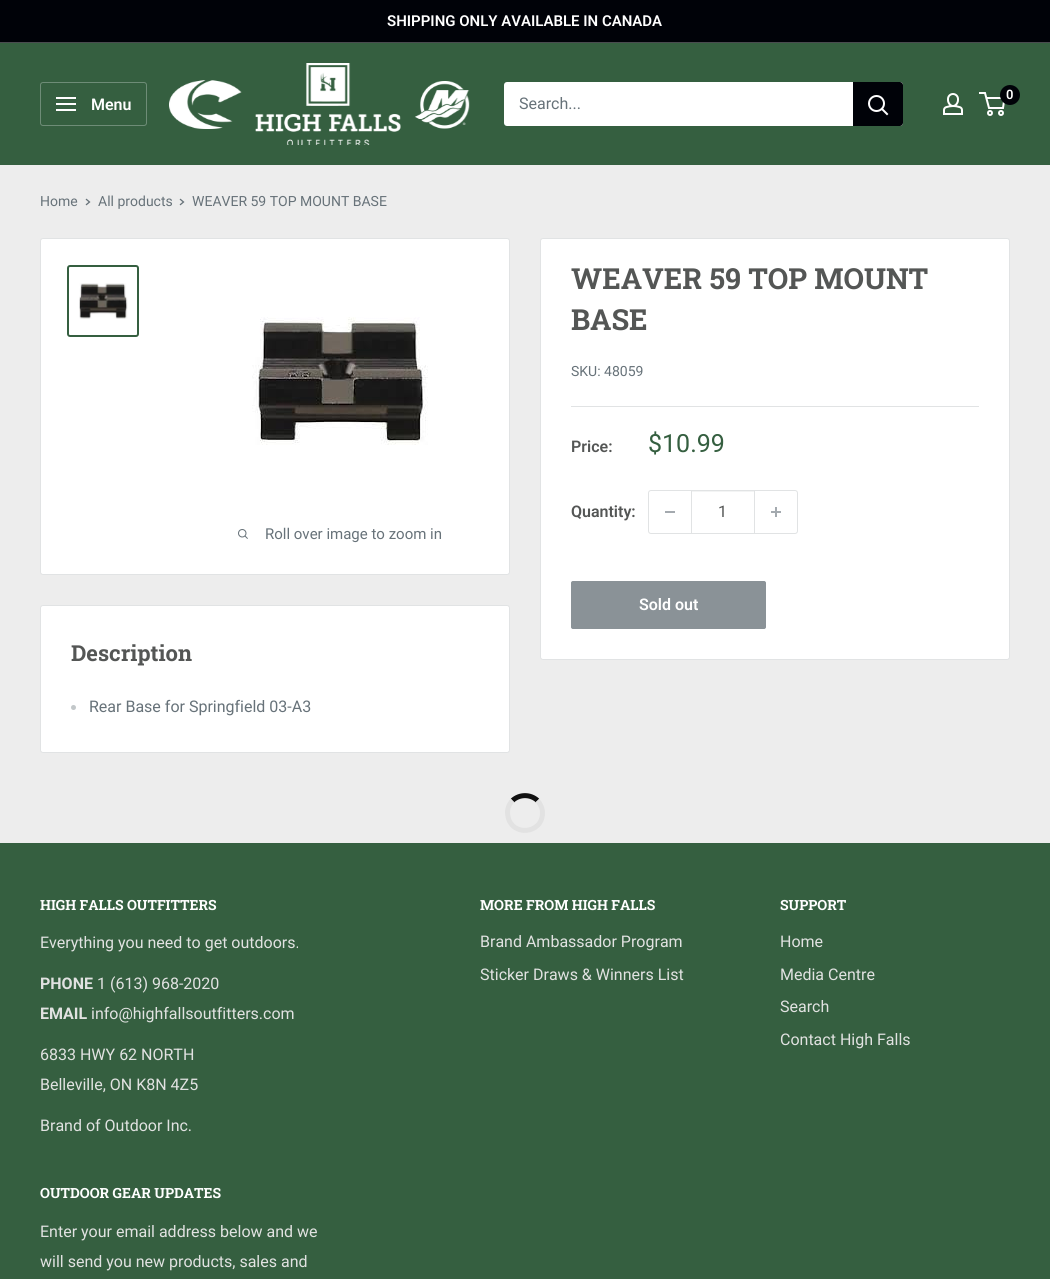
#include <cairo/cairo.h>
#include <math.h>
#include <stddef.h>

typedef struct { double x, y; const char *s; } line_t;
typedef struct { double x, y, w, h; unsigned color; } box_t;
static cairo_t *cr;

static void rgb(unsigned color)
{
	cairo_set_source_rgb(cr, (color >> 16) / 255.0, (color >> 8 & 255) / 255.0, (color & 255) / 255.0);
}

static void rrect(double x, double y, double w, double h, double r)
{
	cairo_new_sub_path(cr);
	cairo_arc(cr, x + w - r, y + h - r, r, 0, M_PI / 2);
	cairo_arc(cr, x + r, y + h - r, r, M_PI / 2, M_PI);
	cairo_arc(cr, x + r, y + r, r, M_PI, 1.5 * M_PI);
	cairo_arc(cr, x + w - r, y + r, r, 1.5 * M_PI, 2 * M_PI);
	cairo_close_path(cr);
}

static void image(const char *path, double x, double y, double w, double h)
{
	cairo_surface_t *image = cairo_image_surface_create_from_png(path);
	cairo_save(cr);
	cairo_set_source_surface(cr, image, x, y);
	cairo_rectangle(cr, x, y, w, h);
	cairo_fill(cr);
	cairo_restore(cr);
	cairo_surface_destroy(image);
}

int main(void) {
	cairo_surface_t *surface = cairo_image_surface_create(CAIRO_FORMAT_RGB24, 1050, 1279);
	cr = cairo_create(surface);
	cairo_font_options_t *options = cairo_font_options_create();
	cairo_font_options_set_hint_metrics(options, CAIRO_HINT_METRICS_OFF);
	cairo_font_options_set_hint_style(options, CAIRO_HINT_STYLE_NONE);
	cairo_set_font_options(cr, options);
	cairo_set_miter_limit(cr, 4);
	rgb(0xededed);
	cairo_paint(cr);
	{
		static const box_t items[] = {
			{0, 0, 1050, 42, 0x000208},
			{0, 42, 1050, 1, 0x494b4f},
			{0, 43, 1050, 122, 0x355f40},
		};
		for (size_t i = 0; i < sizeof items / sizeof *items; i++) {
			rgb(items[i].color);
			cairo_rectangle(cr, items[i].x, items[i].y, items[i].w, items[i].h);
			cairo_fill(cr);
		}
	}
	image("img/1.png", 169, 63, 301, 82);
	image("img/2.png", 943, 93, 20, 22);
	cairo_arc(cr, 990, 113, 2, 0, 2 * M_PI);
	rgb(0xffffff);
	cairo_stroke(cr);
	cairo_arc(cr, 1001, 113, 2, 0, 2 * M_PI);
	cairo_stroke(cr);
	cairo_new_path(cr);
	cairo_move_to(cr, 986.5, 98);
	cairo_line_to(cr, 1004.5, 98);
	cairo_line_to(cr, 1003, 108);
	cairo_line_to(cr, 989, 108);
	cairo_line_to(cr, 985, 93);
	cairo_line_to(cr, 979, 93);
	cairo_stroke(cr);
	rgb(0x000208);
	cairo_arc(cr, 1010, 95, 10, 0, 2 * M_PI);
	cairo_fill(cr);
	rrect(40.5, 82.5, 106, 43, 2.5);
	rgb(0x6e8c77);
	cairo_set_line_width(cr, 1);
	cairo_stroke(cr);
	image("img/3.png", 56, 97, 20, 14);
	rgb(0xffffff);
	rrect(504, 82, 399, 44, 3);
	cairo_fill(cr);
	rgb(0x000208);
	cairo_new_path(cr);
	cairo_move_to(cr, 853, 82);
	cairo_line_to(cr, 900, 82);
	cairo_curve_to(cr, 901.5, 82, 903, 83.5, 903, 85);
	cairo_line_to(cr, 903, 123);
	cairo_curve_to(cr, 903, 124.5, 901.5, 126, 900, 126);
	cairo_line_to(cr, 853, 126);
	cairo_close_path(cr);
	cairo_fill(cr);
	cairo_new_path(cr);
	cairo_move_to(cr, 887, 114);
	cairo_line_to(cr, 882, 109);
	rgb(0xffffff);
	cairo_set_line_width(cr, 2);
	cairo_set_line_cap(cr, CAIRO_LINE_CAP_SQUARE);
	cairo_stroke(cr);
	cairo_arc(cr, 876.5, 103.5, 7.5, 0, 2 * M_PI);
	cairo_set_line_cap(cr, CAIRO_LINE_CAP_BUTT);
	cairo_stroke(cr);
	cairo_new_path(cr);
	cairo_move_to(cr, 86.5, 199.5);
	cairo_line_to(cr, 89.5, 202);
	cairo_line_to(cr, 86.5, 204.5);
	rgb(0x677279);
	cairo_set_line_width(cr, 1.3);
	cairo_set_line_cap(cr, CAIRO_LINE_CAP_SQUARE);
	cairo_stroke(cr);
	cairo_new_path(cr);
	cairo_move_to(cr, 180.5, 199.5);
	cairo_line_to(cr, 183.5, 202);
	cairo_line_to(cr, 180.5, 204.5);
	cairo_stroke(cr);
	rgb(0xffffff);
	rrect(40.5, 238.5, 469, 336, 2.5);
	cairo_fill_preserve(cr);
	rgb(0xe1e3e4);
	cairo_set_line_width(cr, 1);
	cairo_set_line_cap(cr, CAIRO_LINE_CAP_BUTT);
	cairo_stroke(cr);
	rrect(68, 266, 70, 70, 2);
	rgb(0x355f40);
	cairo_set_line_width(cr, 2);
	cairo_stroke(cr);
	image("img/4.png", 79, 283, 49, 36);
	image("img/5.png", 252, 317, 176, 128);
	image("img/6.png", 238, 529, 10, 10);
	rgb(0xffffff);
	rrect(540.5, 238.5, 469, 421, 2.5);
	cairo_fill_preserve(cr);
	rgb(0xe1e3e4);
	cairo_set_line_width(cr, 1);
	cairo_stroke(cr);
	cairo_rectangle(cr, 571, 406, 408, 1);
	cairo_fill(cr);
	rrect(648.5, 490.5, 149, 43, 2.5);
	cairo_stroke(cr);
	{
		static const box_t items[] = {
			{665, 511, 10, 2, 0xa4aaaf},
			{692, 491, 62, 1, 0xf3f4f4},
			{754, 491, 1, 42, 0xe1e3e4},
			{691, 491, 1, 42, 0xe1e3e4},
		};
		for (size_t i = 0; i < sizeof items / sizeof *items; i++) {
			rgb(items[i].color);
			cairo_rectangle(cr, items[i].x, items[i].y, items[i].w, items[i].h);
			cairo_fill(cr);
		}
	}
	image("img/7.png", 771, 507, 10, 10);
	rgb(0x8a9297);
	rrect(571.5, 581.5, 194, 47, 1.5);
	cairo_fill_preserve(cr);
	cairo_stroke(cr);
	rgb(0xffffff);
	rrect(40.5, 605.5, 469, 147, 2.5);
	cairo_fill_preserve(cr);
	rgb(0xe1e3e4);
	cairo_stroke(cr);
	rgb(0xc2c7c9);
	cairo_arc(cr, 73.5, 707.5, 2.5, 0, 2 * M_PI);
	cairo_fill(cr);
	cairo_new_path(cr);
	cairo_move_to(cr, 512.5, 800.5);
	cairo_curve_to(cr, 519.5, 794, 530.5, 794, 537.5, 800.5);
	rgb(0x111111);
	cairo_set_line_width(cr, 5);
	cairo_stroke(cr);
	cairo_new_path(cr);
	cairo_move_to(cr, 537.5, 800.5);
	cairo_curve_to(cr, 540.5, 804, 542.5, 808.5, 542.5, 813);
	cairo_curve_to(cr, 542.5, 834, 512, 837, 508, 816.5);
	cairo_curve_to(cr, 506.5, 810.5, 508.5, 804.5, 512.5, 800.5);
	rgb(0xe2e2e2);
	cairo_stroke(cr);
	rgb(0x355f40);
	cairo_rectangle(cr, 0, 843, 1050, 436);
	cairo_fill(cr);
	cairo_select_font_face(cr, "Roboto SemiBold", CAIRO_FONT_SLANT_NORMAL, CAIRO_FONT_WEIGHT_NORMAL);
	cairo_set_font_size(cr, 15);
	rgb(0xffffff);
	cairo_move_to(cr, 387, 26);
	cairo_show_text(cr, "SHIPPING ONLY AVAILABLE IN CANADA");
	cairo_set_font_size(cr, 13);
	cairo_move_to(cr, 1006, 99);
	cairo_show_text(cr, "0");
	cairo_set_font_size(cr, 16);
	cairo_move_to(cr, 91, 110);
	cairo_show_text(cr, "Menu");
	cairo_select_font_face(cr, "Roboto", CAIRO_FONT_SLANT_NORMAL, CAIRO_FONT_WEIGHT_NORMAL);
	rgb(0x677279);
	cairo_move_to(cr, 519, 109);
	cairo_show_text(cr, "Search...");
	cairo_set_font_size(cr, 14);
	{
		static const line_t items[] = {
			{40, 206, "Home"},
			{98, 206, "All products"},
			{192, 206, "WEAVER 59 TOP MOUNT BASE"},
		};
		for (size_t i = 0; i < sizeof items / sizeof *items; i++) {
			cairo_move_to(cr, items[i].x, items[i].y);
			cairo_show_text(cr, items[i].s);
		}
	}
	cairo_set_font_size(cr, 15);
	cairo_move_to(cr, 265, 539);
	cairo_show_text(cr, "Roll over image to zoom in");
	cairo_select_font_face(cr, "Roboto Slab", CAIRO_FONT_SLANT_NORMAL, CAIRO_FONT_WEIGHT_BOLD);
	cairo_set_font_size(cr, 29);
	rgb(0x545655);
	cairo_move_to(cr, 571, 289);
	cairo_show_text(cr, "WEAVER 59 TOP MOUNT");
	cairo_move_to(cr, 571, 330);
	cairo_show_text(cr, "BASE");
	cairo_select_font_face(cr, "Roboto", CAIRO_FONT_SLANT_NORMAL, CAIRO_FONT_WEIGHT_NORMAL);
	cairo_set_font_size(cr, 14);
	rgb(0x677279);
	cairo_move_to(cr, 571, 376);
	cairo_show_text(cr, "SKU: 48059");
	cairo_select_font_face(cr, "Roboto SemiBold", CAIRO_FONT_SLANT_NORMAL, CAIRO_FONT_WEIGHT_NORMAL);
	cairo_set_font_size(cr, 16);
	rgb(0x545655);
	cairo_move_to(cr, 571, 452);
	cairo_show_text(cr, "Price:");
	cairo_select_font_face(cr, "Roboto", CAIRO_FONT_SLANT_NORMAL, CAIRO_FONT_WEIGHT_NORMAL);
	cairo_set_font_size(cr, 25);
	rgb(0x355f40);
	cairo_move_to(cr, 648, 452);
	cairo_show_text(cr, "$10.99");
	cairo_select_font_face(cr, "Roboto SemiBold", CAIRO_FONT_SLANT_NORMAL, CAIRO_FONT_WEIGHT_NORMAL);
	cairo_set_font_size(cr, 16);
	rgb(0x545655);
	cairo_move_to(cr, 571, 517);
	cairo_show_text(cr, "Quantity:");
	cairo_select_font_face(cr, "Roboto", CAIRO_FONT_SLANT_NORMAL, CAIRO_FONT_WEIGHT_NORMAL);
	cairo_move_to(cr, 718, 517);
	cairo_show_text(cr, "1");
	cairo_select_font_face(cr, "Roboto SemiBold", CAIRO_FONT_SLANT_NORMAL, CAIRO_FONT_WEIGHT_NORMAL);
	rgb(0xffffff);
	cairo_move_to(cr, 639, 610);
	cairo_show_text(cr, "Sold out");
	cairo_select_font_face(cr, "Roboto Slab", CAIRO_FONT_SLANT_NORMAL, CAIRO_FONT_WEIGHT_BOLD);
	cairo_set_font_size(cr, 22);
	rgb(0x545655);
	cairo_move_to(cr, 71, 661);
	cairo_show_text(cr, "Description");
	cairo_select_font_face(cr, "Roboto", CAIRO_FONT_SLANT_NORMAL, CAIRO_FONT_WEIGHT_NORMAL);
	cairo_set_font_size(cr, 16);
	rgb(0x677279);
	cairo_move_to(cr, 89, 712);
	cairo_show_text(cr, "Rear Base for Springfield 03-A3");
	cairo_select_font_face(cr, "Roboto Slab", CAIRO_FONT_SLANT_NORMAL, CAIRO_FONT_WEIGHT_BOLD);
	cairo_set_font_size(cr, 14);
	rgb(0xffffff);
	cairo_move_to(cr, 40, 910);
	cairo_show_text(cr, "HIGH FALLS OUTFITTERS");
	cairo_select_font_face(cr, "Roboto", CAIRO_FONT_SLANT_NORMAL, CAIRO_FONT_WEIGHT_NORMAL);
	cairo_set_font_size(cr, 16);
	rgb(0xe1e2e1);
	cairo_move_to(cr, 40, 948);
	cairo_show_text(cr, "Everything you need to get outdoors.");
	cairo_select_font_face(cr, "Roboto", CAIRO_FONT_SLANT_NORMAL, CAIRO_FONT_WEIGHT_BOLD);
	cairo_move_to(cr, 40, 989);
	cairo_show_text(cr, "PHONE");
	cairo_select_font_face(cr, "Roboto", CAIRO_FONT_SLANT_NORMAL, CAIRO_FONT_WEIGHT_NORMAL);
	cairo_move_to(cr, 97, 989);
	cairo_show_text(cr, "1 (613) 968-2020");
	cairo_select_font_face(cr, "Roboto", CAIRO_FONT_SLANT_NORMAL, CAIRO_FONT_WEIGHT_BOLD);
	cairo_move_to(cr, 40, 1019);
	cairo_show_text(cr, "EMAIL");
	cairo_select_font_face(cr, "Roboto", CAIRO_FONT_SLANT_NORMAL, CAIRO_FONT_WEIGHT_NORMAL);
	{
		static const line_t items[] = {
			{91, 1019, "info@highfallsoutfitters.com"},
			{40, 1060, "6833 HWY 62 NORTH"},
			{40, 1090, "Belleville, ON K8N 4Z5"},
			{40, 1131, "Brand of Outdoor Inc."},
		};
		for (size_t i = 0; i < sizeof items / sizeof *items; i++) {
			cairo_move_to(cr, items[i].x, items[i].y);
			cairo_show_text(cr, items[i].s);
		}
	}
	cairo_select_font_face(cr, "Roboto Slab", CAIRO_FONT_SLANT_NORMAL, CAIRO_FONT_WEIGHT_BOLD);
	cairo_set_font_size(cr, 14);
	rgb(0xffffff);
	cairo_move_to(cr, 480, 910);
	cairo_show_text(cr, "MORE FROM HIGH FALLS");
	cairo_select_font_face(cr, "Roboto", CAIRO_FONT_SLANT_NORMAL, CAIRO_FONT_WEIGHT_NORMAL);
	cairo_set_font_size(cr, 16);
	rgb(0xe1e2e1);
	cairo_move_to(cr, 480, 947);
	cairo_show_text(cr, "Brand Ambassador Program");
	cairo_move_to(cr, 480, 980);
	cairo_show_text(cr, "Sticker Draws & Winners List");
	cairo_select_font_face(cr, "Roboto Slab", CAIRO_FONT_SLANT_NORMAL, CAIRO_FONT_WEIGHT_BOLD);
	cairo_set_font_size(cr, 14);
	rgb(0xffffff);
	cairo_move_to(cr, 780, 910);
	cairo_show_text(cr, "SUPPORT");
	cairo_select_font_face(cr, "Roboto", CAIRO_FONT_SLANT_NORMAL, CAIRO_FONT_WEIGHT_NORMAL);
	cairo_set_font_size(cr, 16);
	rgb(0xe1e2e1);
	{
		static const line_t items[] = {
			{780, 947, "Home"},
			{780, 980, "Media Centre"},
			{780, 1012, "Search"},
			{780, 1045, "Contact High Falls"},
		};
		for (size_t i = 0; i < sizeof items / sizeof *items; i++) {
			cairo_move_to(cr, items[i].x, items[i].y);
			cairo_show_text(cr, items[i].s);
		}
	}
	cairo_select_font_face(cr, "Roboto Slab", CAIRO_FONT_SLANT_NORMAL, CAIRO_FONT_WEIGHT_BOLD);
	cairo_set_font_size(cr, 14);
	rgb(0xffffff);
	cairo_move_to(cr, 40, 1198);
	cairo_show_text(cr, "OUTDOOR GEAR UPDATES");
	cairo_select_font_face(cr, "Roboto", CAIRO_FONT_SLANT_NORMAL, CAIRO_FONT_WEIGHT_NORMAL);
	cairo_set_font_size(cr, 16);
	rgb(0xe1e2e1);
	cairo_move_to(cr, 40, 1237);
	cairo_show_text(cr, "Enter your email address below and we");
	cairo_move_to(cr, 40, 1267);
	cairo_show_text(cr, "will send you new products, sales and");
	cairo_surface_write_to_png(surface, "page.png");
	cairo_font_options_destroy(options);
	cairo_destroy(cr);
	cairo_surface_destroy(surface);
	return 0;
}
